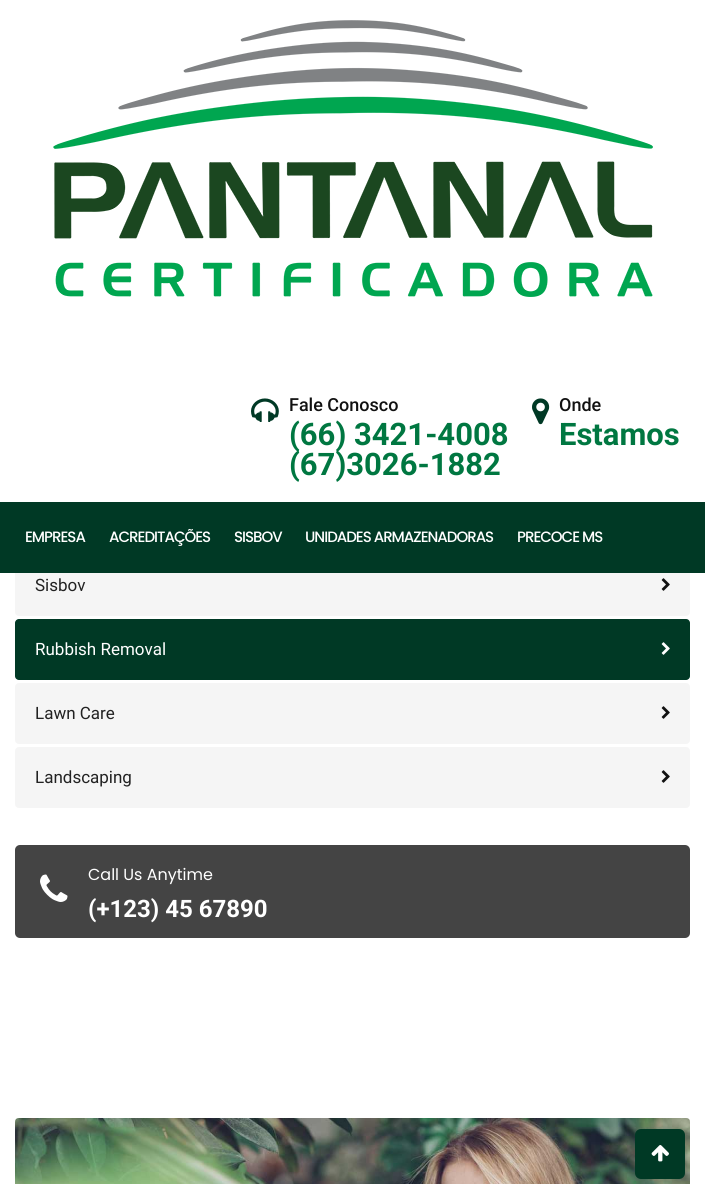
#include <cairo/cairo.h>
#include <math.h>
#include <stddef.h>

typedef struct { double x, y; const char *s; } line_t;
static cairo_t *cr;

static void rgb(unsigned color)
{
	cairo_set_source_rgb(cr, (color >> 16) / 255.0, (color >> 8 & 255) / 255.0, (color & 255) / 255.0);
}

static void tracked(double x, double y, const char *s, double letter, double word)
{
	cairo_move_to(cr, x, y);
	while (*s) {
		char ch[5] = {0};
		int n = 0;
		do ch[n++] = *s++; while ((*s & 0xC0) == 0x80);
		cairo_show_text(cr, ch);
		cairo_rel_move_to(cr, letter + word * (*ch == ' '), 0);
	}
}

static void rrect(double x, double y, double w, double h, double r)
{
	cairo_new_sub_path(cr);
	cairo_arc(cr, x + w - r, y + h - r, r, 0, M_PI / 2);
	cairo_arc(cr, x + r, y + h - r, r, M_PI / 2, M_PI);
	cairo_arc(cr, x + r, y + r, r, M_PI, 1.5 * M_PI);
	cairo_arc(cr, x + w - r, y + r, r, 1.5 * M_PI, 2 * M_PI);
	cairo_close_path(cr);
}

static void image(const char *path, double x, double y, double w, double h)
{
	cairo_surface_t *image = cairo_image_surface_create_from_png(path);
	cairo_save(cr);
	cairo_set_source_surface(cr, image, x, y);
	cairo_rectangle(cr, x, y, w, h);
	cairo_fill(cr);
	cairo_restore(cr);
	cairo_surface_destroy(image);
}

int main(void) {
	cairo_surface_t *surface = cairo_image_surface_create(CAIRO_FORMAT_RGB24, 705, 1184);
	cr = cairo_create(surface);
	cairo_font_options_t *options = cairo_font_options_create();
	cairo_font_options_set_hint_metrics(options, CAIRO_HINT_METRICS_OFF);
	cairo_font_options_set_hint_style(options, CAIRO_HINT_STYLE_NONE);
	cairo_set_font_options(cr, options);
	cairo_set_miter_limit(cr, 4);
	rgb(0xffffff);
	cairo_paint(cr);
	image("img/1.png", 53, 20, 600, 277);
	image("img/2.png", 251, 398, 28, 24);
	image("img/3.png", 532, 398, 18, 27);
	rgb(0xf5f5f5);
	rrect(15, 555, 675, 61, 4);
	cairo_fill(cr);
	rgb(0x003925);
	cairo_rectangle(cr, 0, 502, 705, 71);
	cairo_fill(cr);
	image("img/4.png", 661, 578, 9, 13);
	rrect(15, 619, 675, 61, 4);
	cairo_fill(cr);
	image("img/5.png", 661, 642, 9, 13);
	rgb(0xf5f5f5);
	rrect(15, 683, 675, 61, 4);
	cairo_fill(cr);
	image("img/4.png", 661, 706, 9, 13);
	rrect(15, 747, 675, 61, 4);
	cairo_fill(cr);
	image("img/4.png", 661, 770, 9, 13);
	cairo_save(cr);
	rrect(15, 845, 675, 93, 4);
	cairo_clip(cr);
	rgb(0x444444);
	rrect(15, 845, 675, 93, 5);
	cairo_fill(cr);
	cairo_restore(cr);
	image("img/6.png", 40, 874, 28, 28);
	image("img/7.png", 15, 1118, 675, 66);
	rgb(0x003925);
	rrect(635, 1129, 50, 50, 6);
	cairo_fill(cr);
	image("img/8.png", 651, 1145, 18, 17);
	cairo_select_font_face(cr, "Roboto Medium", CAIRO_FONT_SLANT_NORMAL, CAIRO_FONT_WEIGHT_NORMAL);
	cairo_set_font_size(cr, 18);
	rgb(0x111111);
	cairo_move_to(cr, 289, 411);
	cairo_show_text(cr, "Fale Conosco");
	cairo_select_font_face(cr, "Roboto", CAIRO_FONT_SLANT_NORMAL, CAIRO_FONT_WEIGHT_BOLD);
	cairo_set_font_size(cr, 31);
	rgb(0x007741);
	cairo_move_to(cr, 289, 445);
	cairo_show_text(cr, "(66) 3421-4008");
	cairo_move_to(cr, 289, 475);
	cairo_show_text(cr, "(67)3026-1882");
	cairo_select_font_face(cr, "Roboto Medium", CAIRO_FONT_SLANT_NORMAL, CAIRO_FONT_WEIGHT_NORMAL);
	cairo_set_font_size(cr, 18);
	rgb(0x111111);
	cairo_move_to(cr, 559, 411);
	cairo_show_text(cr, "Onde");
	cairo_select_font_face(cr, "Roboto", CAIRO_FONT_SLANT_NORMAL, CAIRO_FONT_WEIGHT_BOLD);
	cairo_set_font_size(cr, 31);
	rgb(0x007741);
	cairo_move_to(cr, 559, 445);
	cairo_show_text(cr, "Estamos");
	cairo_select_font_face(cr, "Poppins Medium", CAIRO_FONT_SLANT_NORMAL, CAIRO_FONT_WEIGHT_NORMAL);
	cairo_set_font_size(cr, 15);
	rgb(0xffffff);
	{
		static const line_t items[] = {
			{25, 542, "EMPRESA"},
			{109, 542, "ACREDITAÇÕES"},
			{234, 542, "SISBOV"},
			{305, 542, "UNIDADES ARMAZENADORAS"},
			{517, 542, "PRECOCE MS"},
		};
		for (size_t i = 0; i < sizeof items / sizeof *items; i++) {
			tracked(items[i].x, items[i].y, items[i].s, -1, 0);
		}
	}
	cairo_select_font_face(cr, "Roboto", CAIRO_FONT_SLANT_NORMAL, CAIRO_FONT_WEIGHT_NORMAL);
	cairo_set_font_size(cr, 17);
	rgb(0x222222);
	cairo_move_to(cr, 35, 591);
	cairo_show_text(cr, "Sisbov");
	rgb(0xffffff);
	cairo_move_to(cr, 35, 655);
	cairo_show_text(cr, "Rubbish Removal");
	rgb(0x222222);
	cairo_move_to(cr, 35, 719);
	cairo_show_text(cr, "Lawn Care");
	cairo_move_to(cr, 35, 783);
	cairo_show_text(cr, "Landscaping");
	cairo_select_font_face(cr, "Poppins", CAIRO_FONT_SLANT_NORMAL, CAIRO_FONT_WEIGHT_NORMAL);
	cairo_set_font_size(cr, 16);
	rgb(0xffffff);
	cairo_move_to(cr, 88, 880);
	cairo_show_text(cr, "Call Us Anytime");
	cairo_select_font_face(cr, "Roboto", CAIRO_FONT_SLANT_NORMAL, CAIRO_FONT_WEIGHT_BOLD);
	cairo_set_font_size(cr, 24);
	cairo_move_to(cr, 88, 917);
	cairo_show_text(cr, "(+123) 45 67890");
	cairo_surface_write_to_png(surface, "page.png");
	cairo_font_options_destroy(options);
	cairo_destroy(cr);
	cairo_surface_destroy(surface);
	return 0;
}
